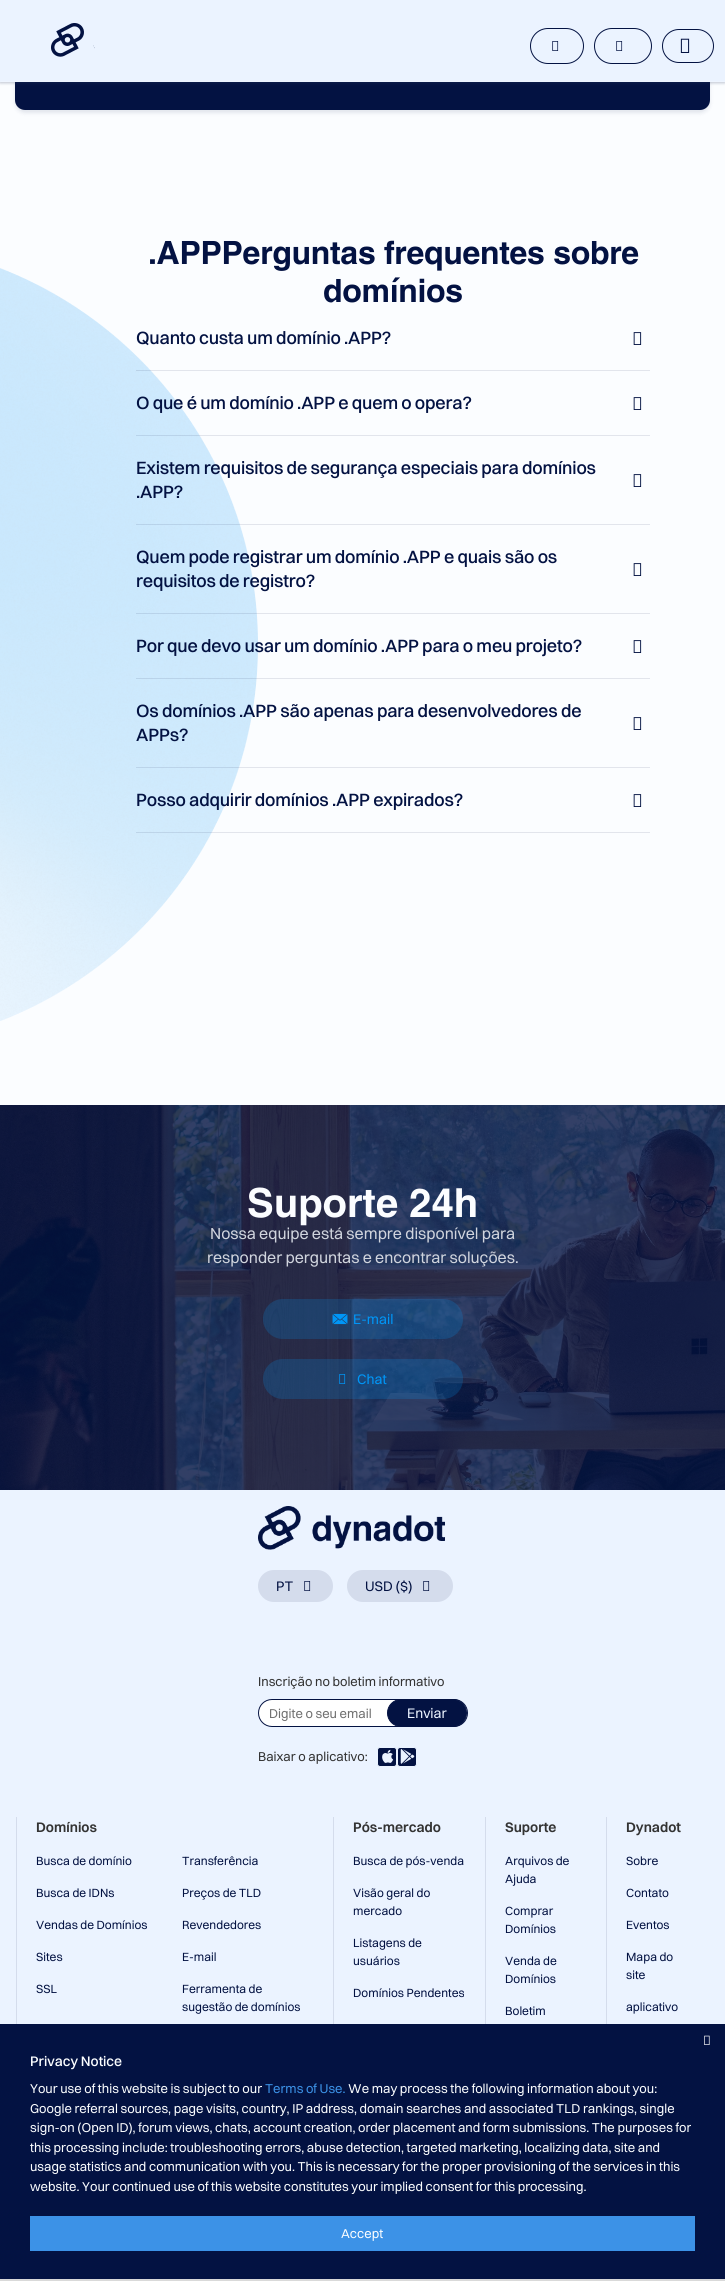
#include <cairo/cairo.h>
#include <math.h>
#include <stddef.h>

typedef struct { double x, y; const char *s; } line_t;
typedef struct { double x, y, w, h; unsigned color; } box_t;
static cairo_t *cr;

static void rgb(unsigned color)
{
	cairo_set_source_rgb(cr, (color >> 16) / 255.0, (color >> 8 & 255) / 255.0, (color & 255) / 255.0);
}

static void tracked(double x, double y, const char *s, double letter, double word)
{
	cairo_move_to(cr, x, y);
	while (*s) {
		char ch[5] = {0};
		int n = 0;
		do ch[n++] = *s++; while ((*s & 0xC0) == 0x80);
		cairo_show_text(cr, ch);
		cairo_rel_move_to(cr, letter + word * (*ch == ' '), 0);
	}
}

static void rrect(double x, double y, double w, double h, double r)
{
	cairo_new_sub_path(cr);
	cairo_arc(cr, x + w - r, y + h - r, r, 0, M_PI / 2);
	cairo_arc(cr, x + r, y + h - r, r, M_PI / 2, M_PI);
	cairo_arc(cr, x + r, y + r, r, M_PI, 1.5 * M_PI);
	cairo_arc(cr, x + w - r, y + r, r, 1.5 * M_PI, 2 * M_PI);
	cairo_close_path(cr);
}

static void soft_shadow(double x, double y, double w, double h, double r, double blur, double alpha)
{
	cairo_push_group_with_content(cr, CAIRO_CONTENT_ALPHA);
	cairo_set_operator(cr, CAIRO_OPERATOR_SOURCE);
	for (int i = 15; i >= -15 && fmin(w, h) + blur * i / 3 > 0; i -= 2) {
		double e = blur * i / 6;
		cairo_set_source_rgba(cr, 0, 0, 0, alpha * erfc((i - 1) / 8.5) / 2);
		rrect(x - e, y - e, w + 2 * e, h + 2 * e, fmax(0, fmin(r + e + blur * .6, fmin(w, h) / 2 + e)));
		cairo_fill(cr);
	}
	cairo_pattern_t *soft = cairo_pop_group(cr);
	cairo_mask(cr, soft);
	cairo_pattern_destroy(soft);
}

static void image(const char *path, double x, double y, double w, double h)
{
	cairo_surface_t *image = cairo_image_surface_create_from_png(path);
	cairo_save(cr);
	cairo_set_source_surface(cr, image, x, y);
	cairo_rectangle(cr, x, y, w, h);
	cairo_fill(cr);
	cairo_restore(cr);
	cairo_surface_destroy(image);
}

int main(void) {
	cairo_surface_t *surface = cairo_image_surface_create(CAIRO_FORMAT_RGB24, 725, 2281);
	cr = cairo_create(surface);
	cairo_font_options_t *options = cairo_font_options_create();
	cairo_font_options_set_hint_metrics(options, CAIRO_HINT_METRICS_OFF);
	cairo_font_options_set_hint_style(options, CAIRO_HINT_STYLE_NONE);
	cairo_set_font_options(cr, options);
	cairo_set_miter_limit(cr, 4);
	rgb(0xfbfdff);
	cairo_paint(cr);
	rgb(0x031242);
	soft_shadow(15, -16, 695, 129, 10, 2, 0.1);
	rgb(0x031242);
	rrect(15, -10, 695, 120, 10);
	cairo_fill(cr);
	rgb(0x2b3b5d);
	soft_shadow(0, 1, 725, 82, 0, 1.5, 0.3);
	rgb(0xebf3ff);
	cairo_rectangle(cr, 0, 0, 725, 82);
	cairo_fill(cr);
	rgb(0xeef5ff);
	cairo_new_path(cr);
	cairo_move_to(cr, 725, 82);
	cairo_line_to(cr, 0, 82);
	cairo_line_to(cr, 1, 81);
	cairo_line_to(cr, 724, 81);
	cairo_close_path(cr);
	cairo_fill(cr);
	image("img/1.png", 51, 23, 44, 34);
	rrect(530.5, 28.5, 53, 35, 17.5);
	rgb(0x031242);
	cairo_set_line_width(cr, 1);
	cairo_stroke(cr);
	image("img/2.png", 552, 41, 7, 10);
	rrect(594.5, 28.5, 57, 35, 17.5);
	cairo_stroke(cr);
	image("img/2.png", 616, 41, 7, 10);
	rrect(662.5, 29.5, 51, 33, 16.5);
	cairo_stroke(cr);
	image("img/3.png", 680, 38, 10, 15);
	image("img/4.png", 0, 268, 258, 753);
	cairo_set_source_rgba(cr, 0.012, 0.071, 0.259, 0.1);
	cairo_rectangle(cr, 136, 370, 514, 1);
	cairo_fill(cr);
	image("img/5.png", 633, 332, 9, 13);
	cairo_rectangle(cr, 136, 435, 514, 1);
	cairo_fill(cr);
	image("img/5.png", 633, 397, 9, 13);
	cairo_rectangle(cr, 136, 524, 514, 1);
	cairo_fill(cr);
	image("img/5.png", 633, 474, 9, 13);
	cairo_rectangle(cr, 136, 613, 514, 1);
	cairo_fill(cr);
	image("img/5.png", 633, 563, 9, 13);
	cairo_rectangle(cr, 136, 678, 514, 1);
	cairo_fill(cr);
	image("img/5.png", 633, 640, 9, 13);
	cairo_rectangle(cr, 136, 767, 514, 1);
	cairo_fill(cr);
	image("img/5.png", 633, 717, 9, 13);
	cairo_rectangle(cr, 136, 832, 514, 1);
	cairo_fill(cr);
	image("img/5.png", 633, 794, 9, 13);
	image("img/6.png", 0, 1105, 725, 385);
	cairo_set_source_rgba(cr, 0, 0.588, 0.969, 0.2);
	rrect(263, 1299, 200, 40, 20);
	cairo_fill(cr);
	image("img/7.png", 332, 1313, 16, 12);
	rrect(263, 1359, 200, 40, 20);
	cairo_fill(cr);
	image("img/8.png", 339, 1374, 7, 10);
	rgb(0x031242);
	cairo_rectangle(cr, 0, 2024, 725, 255);
	cairo_fill(cr);
	image("img/9.png", 704, 2035, 6, 10);
	{
		static const box_t items[] = {
			{30, 2216, 665, 35, 0x3c92e7},
			{0, 2279, 725, 2, 0xd9d9d9},
			{0, 1490, 725, 534, 0xebf3ff},
		};
		for (size_t i = 0; i < sizeof items / sizeof *items; i++) {
			rgb(items[i].color);
			cairo_rectangle(cr, items[i].x, items[i].y, items[i].w, items[i].h);
			cairo_fill(cr);
		}
	}
	image("img/10.png", 258, 1506, 187, 44);
	rgb(0xd4dcec);
	rrect(258, 1570, 75, 32, 16);
	cairo_fill(cr);
	image("img/11.png", 304, 1581, 7, 10);
	rrect(347, 1570, 106, 32, 16);
	cairo_fill(cr);
	image("img/11.png", 423, 1581, 7, 10);
	rgb(0xffffff);
	rrect(258.5, 1699.5, 209, 27, 13.5);
	cairo_fill_preserve(cr);
	rgb(0x031242);
	cairo_stroke(cr);
	rrect(387.5, 1699.5, 79, 27, 13.5);
	cairo_fill_preserve(cr);
	cairo_stroke(cr);
	rrect(377.5, 1747.5, 19, 19, 2.5);
	cairo_fill_preserve(cr);
	rgb(0xebf3ff);
	cairo_stroke(cr);
	image("img/12.png", 382, 1749, 12, 14);
	rgb(0x031242);
	rrect(397.5, 1747.5, 19, 19, 2.5);
	cairo_fill_preserve(cr);
	rgb(0xebf3ff);
	cairo_stroke(cr);
	image("img/13.png", 400, 1749, 15, 15);
	{
		static const box_t items[] = {
			{16, 1817, 1, 207, 0xd4dcec},
			{333, 1817, 1, 207, 0xd4dcec},
			{485, 1817, 1, 207, 0xd4dcec},
			{606, 1817, 1, 207, 0xd4dcec},
		};
		for (size_t i = 0; i < sizeof items / sizeof *items; i++) {
			rgb(items[i].color);
			cairo_rectangle(cr, items[i].x, items[i].y, items[i].w, items[i].h);
			cairo_fill(cr);
		}
	}
	cairo_select_font_face(cr, "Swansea", CAIRO_FONT_SLANT_NORMAL, CAIRO_FONT_WEIGHT_BOLD);
	cairo_set_font_size(cr, 32);
	rgb(0x031242);
	tracked(148, 264, ".APPPerguntas frequentes sobre", -0.3, 0);
	tracked(323, 302, "domínios", -0.3, 0);
	cairo_select_font_face(cr, "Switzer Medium", CAIRO_FONT_SLANT_NORMAL, CAIRO_FONT_WEIGHT_NORMAL);
	cairo_set_font_size(cr, 18);
	{
		static const line_t items[] = {
			{136, 344, "Quanto custa um domínio .APP?"},
			{136, 409, "O que é um domínio .APP e quem o opera?"},
			{136, 474, "Existem requisitos de segurança especiais para domínios"},
			{136, 498, ".APP?"},
			{136, 563, "Quem pode registrar um domínio .APP e quais são os"},
			{136, 587, "requisitos de registro?"},
			{136, 652, "Por que devo usar um domínio .APP para o meu projeto?"},
			{136, 717, "Os domínios .APP são apenas para desenvolvedores de"},
			{136, 741, "APPs?"},
			{136, 806, "Posso adquirir domínios .APP expirados?"},
		};
		for (size_t i = 0; i < sizeof items / sizeof *items; i++) {
			tracked(items[i].x, items[i].y, items[i].s, -0.18, 0);
		}
	}
	cairo_select_font_face(cr, "Swansea", CAIRO_FONT_SLANT_NORMAL, CAIRO_FONT_WEIGHT_BOLD);
	cairo_set_font_size(cr, 40);
	rgb(0xfbfdff);
	cairo_move_to(cr, 247, 1217);
	cairo_show_text(cr, "Suporte 24h");
	cairo_select_font_face(cr, "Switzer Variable", CAIRO_FONT_SLANT_NORMAL, CAIRO_FONT_WEIGHT_NORMAL);
	cairo_set_font_size(cr, 16);
	rgb(0xd0d4dd);
	cairo_move_to(cr, 210, 1239);
	cairo_show_text(cr, "Nossa equipe está sempre disponível para");
	cairo_move_to(cr, 207, 1263);
	cairo_show_text(cr, "responder perguntas e encontrar soluções.");
	cairo_set_font_size(cr, 14);
	rgb(0x0096f7);
	cairo_move_to(cr, 353, 1324);
	cairo_show_text(cr, "E-mail");
	cairo_move_to(cr, 357, 1384);
	cairo_show_text(cr, "Chat");
	cairo_select_font_face(cr, "Switzer Medium", CAIRO_FONT_SLANT_NORMAL, CAIRO_FONT_WEIGHT_NORMAL);
	rgb(0xfbfdff);
	cairo_move_to(cr, 30, 2066);
	cairo_show_text(cr, "Privacy Notice");
	cairo_select_font_face(cr, "Switzer Variable", CAIRO_FONT_SLANT_NORMAL, CAIRO_FONT_WEIGHT_NORMAL);
	cairo_set_font_size(cr, 13);
	cairo_move_to(cr, 30, 2093);
	cairo_show_text(cr, "Your use of this website is subject to our");
	rgb(0x3c92e7);
	cairo_move_to(cr, 265, 2093);
	cairo_show_text(cr, "Terms of Use.");
	rgb(0xfbfdff);
	{
		static const line_t items[] = {
			{348, 2093, "We may process the following information about you:"},
			{30, 2113, "Google referral sources, page visits, country, IP address, domain searches and associated TLD rankings, single"},
			{30, 2132, "sign-on (Open ID), forum views, chats, account creation, order placement and form submissions. The purposes for"},
			{30, 2152, "this processing include: troubleshooting errors, abuse detection, targeted marketing, localizing data, site and"},
			{30, 2171, "usage statistics and communication with you. This is necessary for the proper provisioning of the services in this"},
			{30, 2191, "website. Your continued use of this website constitutes your implied consent for this processing."},
			{341, 2238, "Accept"},
		};
		for (size_t i = 0; i < sizeof items / sizeof *items; i++) {
			cairo_move_to(cr, items[i].x, items[i].y);
			cairo_show_text(cr, items[i].s);
		}
	}
	cairo_set_font_size(cr, 14);
	rgb(0x031242);
	cairo_move_to(cr, 276, 1591);
	cairo_show_text(cr, "PT");
	cairo_move_to(cr, 365, 1591);
	cairo_show_text(cr, "USD ($)");
	cairo_set_font_size(cr, 13);
	rgb(0x333333);
	cairo_move_to(cr, 258, 1686);
	cairo_show_text(cr, "Inscrição no boletim informativo");
	rgb(0x707070);
	cairo_move_to(cr, 269, 1718);
	cairo_show_text(cr, "Digite o seu email");
	cairo_set_font_size(cr, 14);
	rgb(0xebf3ff);
	cairo_move_to(cr, 407, 1718);
	cairo_show_text(cr, "Enviar");
	cairo_set_font_size(cr, 13);
	rgb(0x333333);
	cairo_move_to(cr, 258, 1761);
	cairo_show_text(cr, "Baixar o aplicativo:");
	cairo_select_font_face(cr, "Switzer SemiBold", CAIRO_FONT_SLANT_NORMAL, CAIRO_FONT_WEIGHT_NORMAL);
	cairo_set_font_size(cr, 14);
	cairo_move_to(cr, 36, 1832);
	cairo_show_text(cr, "Domínios");
	cairo_select_font_face(cr, "Switzer Variable", CAIRO_FONT_SLANT_NORMAL, CAIRO_FONT_WEIGHT_NORMAL);
	cairo_set_font_size(cr, 12);
	rgb(0x031242);
	{
		static const line_t items[] = {
			{36, 1865, "Busca de domínio"},
			{182, 1865, "Transferência"},
			{36, 1897, "Busca de IDNs"},
			{182, 1897, "Preços de TLD"},
			{36, 1929, "Vendas de Domínios"},
			{182, 1929, "Revendedores"},
			{36, 1961, "Sites"},
			{182, 1961, "E-mail"},
			{36, 1993, "SSL"},
			{182, 1993, "Ferramenta de"},
			{182, 2011, "sugestão de domínios"},
		};
		for (size_t i = 0; i < sizeof items / sizeof *items; i++) {
			cairo_move_to(cr, items[i].x, items[i].y);
			cairo_show_text(cr, items[i].s);
		}
	}
	cairo_select_font_face(cr, "Switzer SemiBold", CAIRO_FONT_SLANT_NORMAL, CAIRO_FONT_WEIGHT_NORMAL);
	cairo_set_font_size(cr, 14);
	rgb(0x333333);
	cairo_move_to(cr, 353, 1832);
	cairo_show_text(cr, "Pós-mercado");
	cairo_select_font_face(cr, "Switzer Variable", CAIRO_FONT_SLANT_NORMAL, CAIRO_FONT_WEIGHT_NORMAL);
	cairo_set_font_size(cr, 12);
	rgb(0x031242);
	{
		static const line_t items[] = {
			{353, 1865, "Busca de pós-venda"},
			{353, 1897, "Visão geral do"},
			{353, 1915, "mercado"},
			{353, 1947, "Listagens de"},
			{353, 1965, "usuários"},
			{353, 1997, "Domínios Pendentes"},
		};
		for (size_t i = 0; i < sizeof items / sizeof *items; i++) {
			cairo_move_to(cr, items[i].x, items[i].y);
			cairo_show_text(cr, items[i].s);
		}
	}
	cairo_select_font_face(cr, "Switzer SemiBold", CAIRO_FONT_SLANT_NORMAL, CAIRO_FONT_WEIGHT_NORMAL);
	cairo_set_font_size(cr, 14);
	rgb(0x333333);
	cairo_move_to(cr, 505, 1832);
	cairo_show_text(cr, "Suporte");
	cairo_select_font_face(cr, "Switzer Variable", CAIRO_FONT_SLANT_NORMAL, CAIRO_FONT_WEIGHT_NORMAL);
	cairo_set_font_size(cr, 12);
	rgb(0x031242);
	{
		static const line_t items[] = {
			{505, 1865, "Arquivos de"},
			{505, 1883, "Ajuda"},
			{505, 1915, "Comprar"},
			{505, 1933, "Domínios"},
			{505, 1965, "Venda de"},
			{505, 1983, "Domínios"},
			{505, 2015, "Boletim"},
		};
		for (size_t i = 0; i < sizeof items / sizeof *items; i++) {
			cairo_move_to(cr, items[i].x, items[i].y);
			cairo_show_text(cr, items[i].s);
		}
	}
	cairo_select_font_face(cr, "Switzer SemiBold", CAIRO_FONT_SLANT_NORMAL, CAIRO_FONT_WEIGHT_NORMAL);
	cairo_set_font_size(cr, 14);
	rgb(0x333333);
	cairo_move_to(cr, 626, 1832);
	cairo_show_text(cr, "Dynadot");
	cairo_select_font_face(cr, "Switzer Variable", CAIRO_FONT_SLANT_NORMAL, CAIRO_FONT_WEIGHT_NORMAL);
	cairo_set_font_size(cr, 12);
	rgb(0x031242);
	{
		static const line_t items[] = {
			{626, 1865, "Sobre"},
			{626, 1897, "Contato"},
			{626, 1929, "Eventos"},
			{626, 1961, "Mapa do"},
			{626, 1979, "site"},
			{626, 2011, "aplicativo"},
		};
		for (size_t i = 0; i < sizeof items / sizeof *items; i++) {
			cairo_move_to(cr, items[i].x, items[i].y);
			cairo_show_text(cr, items[i].s);
		}
	}
	cairo_surface_write_to_png(surface, "page.png");
	cairo_font_options_destroy(options);
	cairo_destroy(cr);
	cairo_surface_destroy(surface);
	return 0;
}
